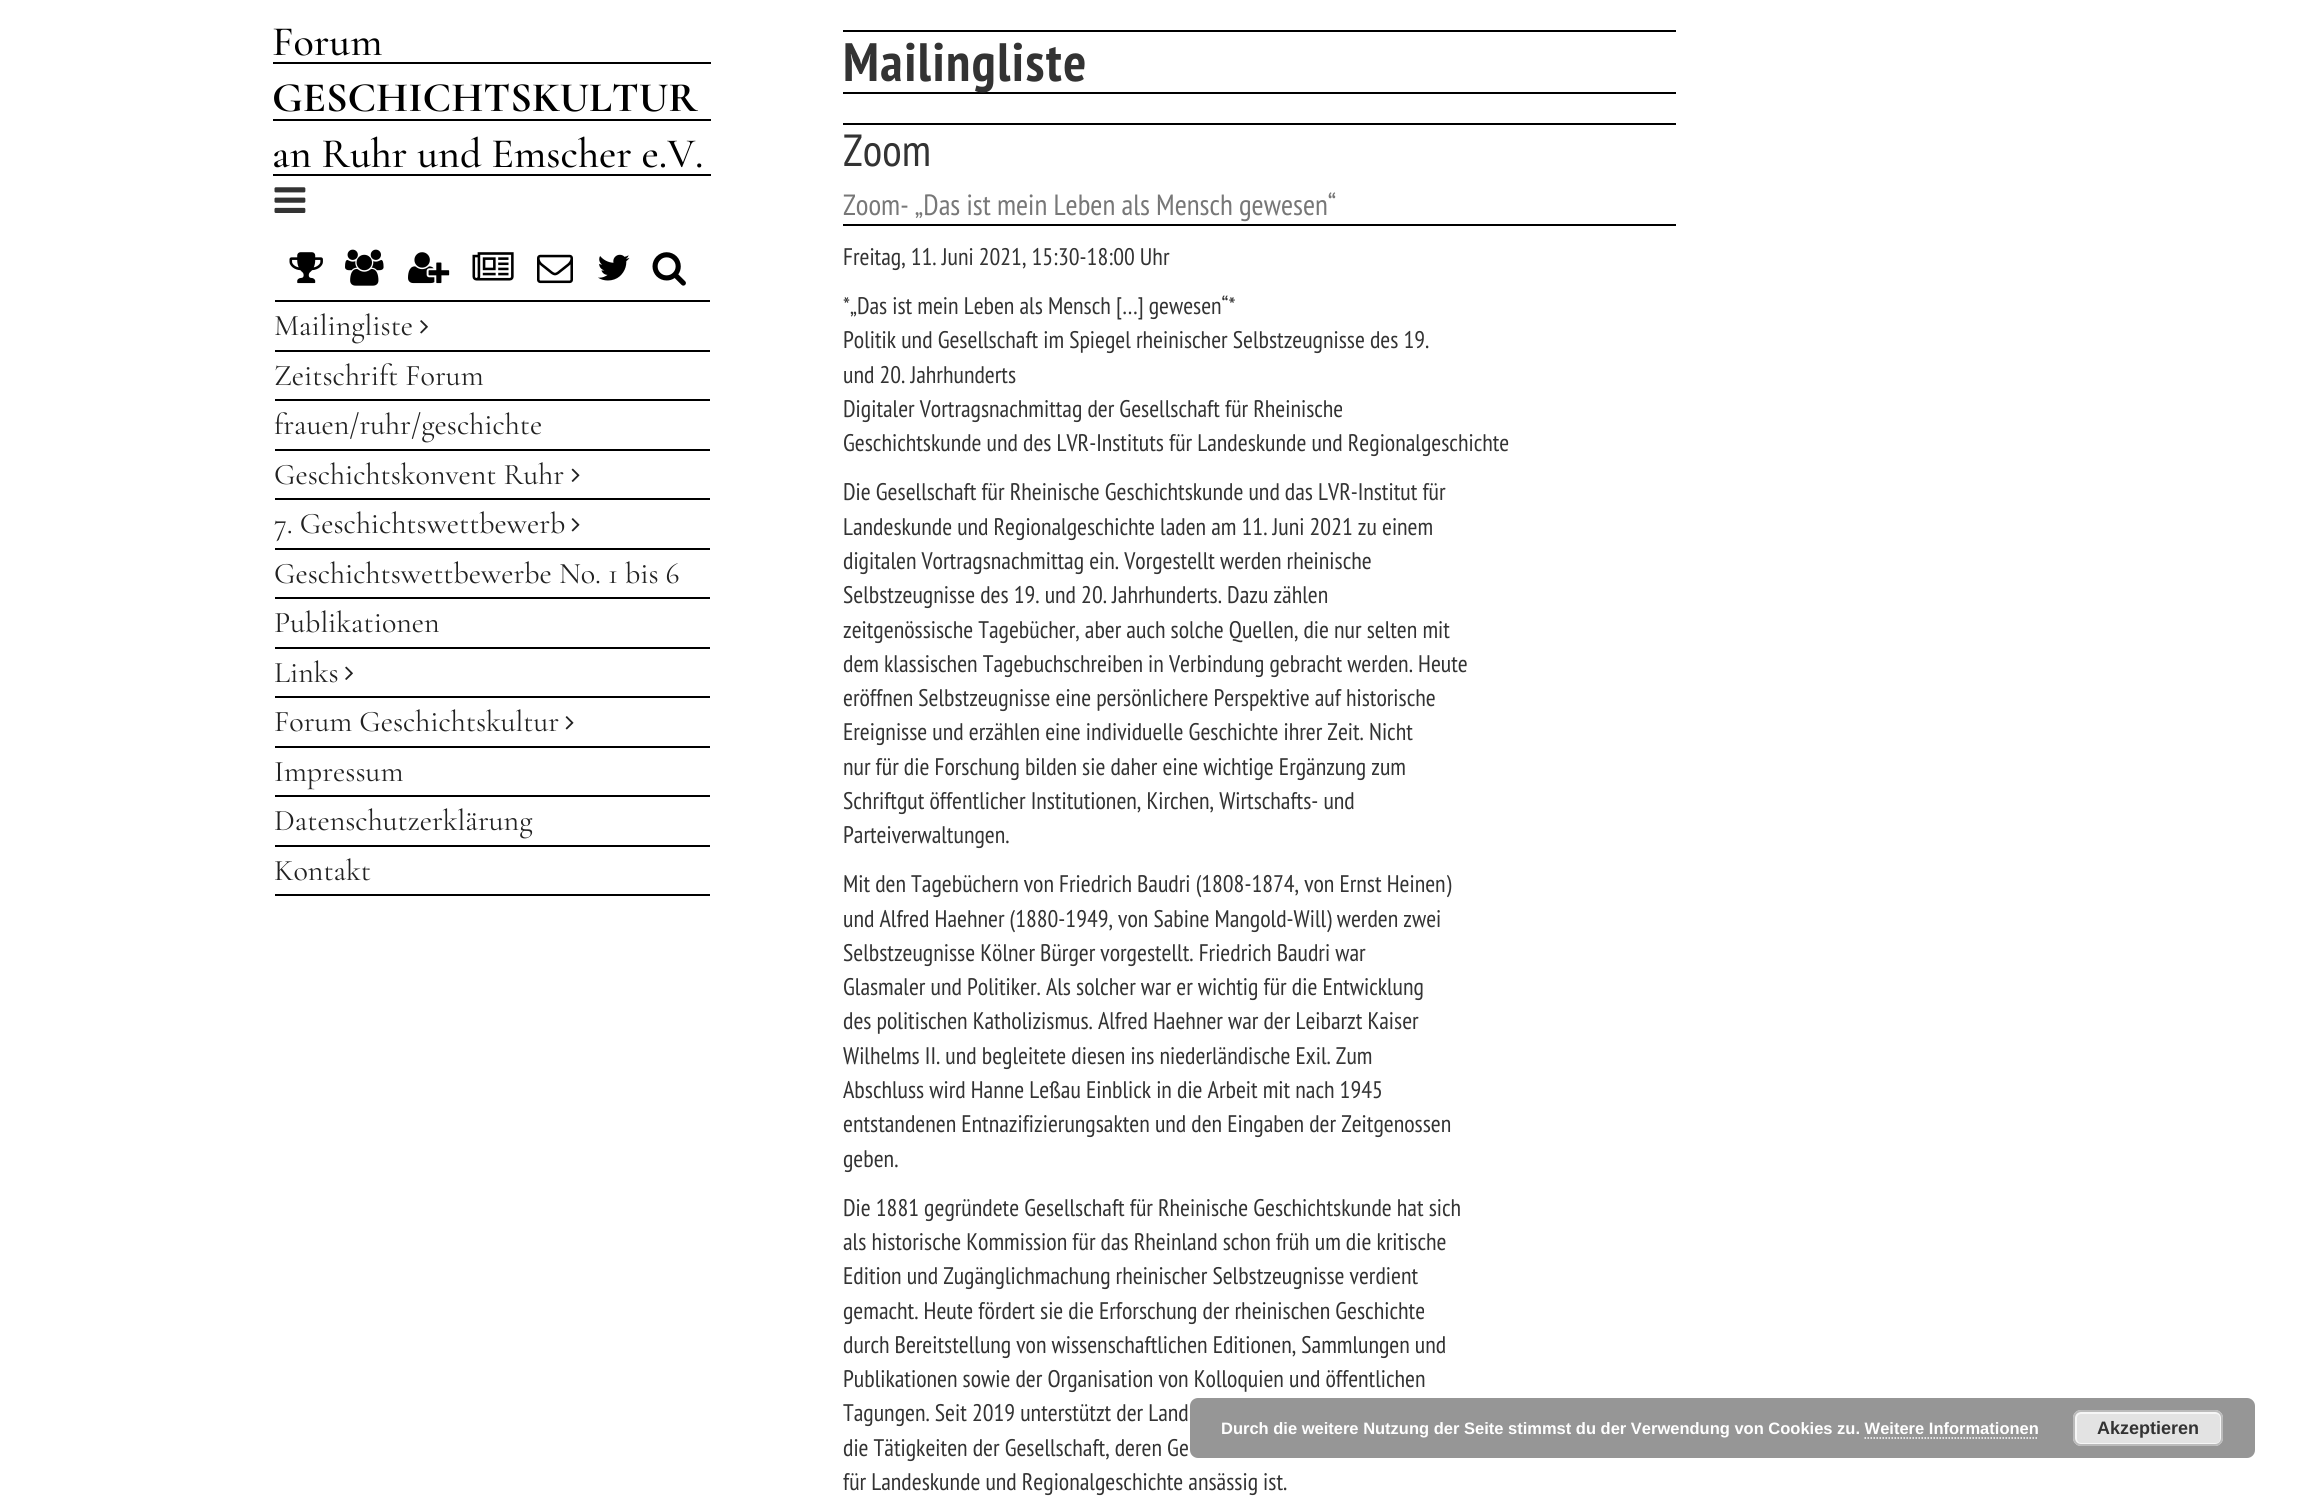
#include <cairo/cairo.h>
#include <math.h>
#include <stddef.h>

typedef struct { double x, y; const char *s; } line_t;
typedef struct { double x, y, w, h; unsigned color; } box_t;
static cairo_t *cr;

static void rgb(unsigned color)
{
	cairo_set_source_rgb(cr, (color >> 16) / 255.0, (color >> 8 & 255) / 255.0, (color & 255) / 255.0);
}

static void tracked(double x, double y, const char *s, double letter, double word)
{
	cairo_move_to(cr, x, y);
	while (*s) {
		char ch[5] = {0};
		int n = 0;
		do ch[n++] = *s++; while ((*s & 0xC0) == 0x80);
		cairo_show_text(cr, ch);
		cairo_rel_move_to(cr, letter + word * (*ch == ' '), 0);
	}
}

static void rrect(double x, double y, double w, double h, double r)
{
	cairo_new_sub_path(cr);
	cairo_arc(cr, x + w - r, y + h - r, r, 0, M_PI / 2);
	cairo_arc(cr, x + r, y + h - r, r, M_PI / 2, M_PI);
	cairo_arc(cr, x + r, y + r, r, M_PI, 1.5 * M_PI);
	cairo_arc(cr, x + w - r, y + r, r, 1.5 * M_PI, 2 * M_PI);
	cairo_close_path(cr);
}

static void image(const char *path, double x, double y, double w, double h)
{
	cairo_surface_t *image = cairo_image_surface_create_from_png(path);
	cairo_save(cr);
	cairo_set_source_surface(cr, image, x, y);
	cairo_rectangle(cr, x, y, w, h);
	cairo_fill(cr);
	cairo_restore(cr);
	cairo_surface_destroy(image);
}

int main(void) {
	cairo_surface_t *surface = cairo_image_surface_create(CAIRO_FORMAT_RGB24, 2299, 1503);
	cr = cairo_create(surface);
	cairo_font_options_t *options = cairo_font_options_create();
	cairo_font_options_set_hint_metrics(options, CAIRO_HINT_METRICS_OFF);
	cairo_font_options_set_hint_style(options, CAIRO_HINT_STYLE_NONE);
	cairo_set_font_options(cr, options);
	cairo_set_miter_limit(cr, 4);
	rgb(0xffffff);
	cairo_paint(cr);
	{
		static const box_t items[] = {
			{273, 62, 438, 2, 0x000000},
			{273, 119, 438, 2, 0x000000},
			{273, 174, 438, 2, 0x000000},
		};
		for (size_t i = 0; i < sizeof items / sizeof *items; i++) {
			rgb(items[i].color);
			cairo_rectangle(cr, items[i].x, items[i].y, items[i].w, items[i].h);
			cairo_fill(cr);
		}
	}
	image("img/1.png", 274, 187, 32, 26);
	image("img/2.png", 289, 252, 34, 32);
	image("img/3.png", 345, 249, 39, 37);
	image("img/4.png", 408, 252, 42, 32);
	image("img/5.png", 472, 252, 42, 29);
	image("img/6.png", 537, 254, 36, 30);
	image("img/7.png", 598, 254, 32, 27);
	image("img/8.png", 652, 252, 34, 34);
	cairo_rectangle(cr, 275, 300, 435, 2);
	cairo_fill(cr);
	image("img/9.png", 420, 320, 8, 14);
	{
		static const box_t items[] = {
			{275, 350, 435, 2, 0x000000},
			{275, 399, 435, 2, 0x000000},
			{275, 449, 435, 2, 0x000000},
		};
		for (size_t i = 0; i < sizeof items / sizeof *items; i++) {
			rgb(items[i].color);
			cairo_rectangle(cr, items[i].x, items[i].y, items[i].w, items[i].h);
			cairo_fill(cr);
		}
	}
	image("img/10.png", 571, 468, 9, 14);
	cairo_rectangle(cr, 275, 498, 435, 2);
	cairo_fill(cr);
	image("img/11.png", 571, 518, 9, 14);
	{
		static const box_t items[] = {
			{275, 548, 435, 2, 0x000000},
			{275, 597, 435, 2, 0x000000},
			{275, 647, 435, 2, 0x000000},
		};
		for (size_t i = 0; i < sizeof items / sizeof *items; i++) {
			rgb(items[i].color);
			cairo_rectangle(cr, items[i].x, items[i].y, items[i].w, items[i].h);
			cairo_fill(cr);
		}
	}
	image("img/12.png", 345, 666, 8, 14);
	cairo_rectangle(cr, 275, 696, 435, 2);
	cairo_fill(cr);
	image("img/11.png", 565, 716, 9, 14);
	{
		static const box_t items[] = {
			{275, 746, 435, 2, 0x000000},
			{275, 795, 435, 2, 0x000000},
			{275, 845, 435, 2, 0x000000},
			{275, 894, 435, 2, 0x000000},
			{843, 30, 833, 2, 0x000000},
			{843, 92, 833, 2, 0x000000},
			{843, 123, 833, 2, 0x000000},
			{843, 224, 833, 2, 0x000000},
		};
		for (size_t i = 0; i < sizeof items / sizeof *items; i++) {
			rgb(items[i].color);
			cairo_rectangle(cr, items[i].x, items[i].y, items[i].w, items[i].h);
			cairo_fill(cr);
		}
	}
	cairo_set_source_rgba(cr, 0.518, 0.518, 0.518, 0.85);
	rrect(1190, 1398, 1065, 60, 8);
	cairo_fill(cr);
	rgb(0xe3e3e3);
	rrect(2073, 1410, 150, 36, 8);
	cairo_fill(cr);
	rrect(2076, 1413, 145, 31, 5);
	rgb(0xf6f6f6);
	cairo_stroke(cr);
	rrect(2074, 1411, 148, 34, 7);
	rgb(0xbbbbbb);
	cairo_stroke(cr);
	cairo_new_path(cr);
	cairo_move_to(cr, 1864.5, 1438);
	cairo_line_to(cr, 2038.5, 1438);
	rgb(0xffffff);
	cairo_set_line_width(cr, 1.5);
	cairo_set_dash(cr, (double[]){1.5, 1.5}, 2, 0);
	cairo_stroke(cr);
	cairo_select_font_face(cr, "Cormorant Garamond Medium", CAIRO_FONT_SLANT_NORMAL, CAIRO_FONT_WEIGHT_NORMAL);
	cairo_set_font_size(cr, 42);
	rgb(0x000000);
	cairo_move_to(cr, 272, 55);
	cairo_show_text(cr, "Forum");
	cairo_select_font_face(cr, "Cormorant Garamond", CAIRO_FONT_SLANT_NORMAL, CAIRO_FONT_WEIGHT_BOLD);
	cairo_move_to(cr, 272, 111);
	cairo_show_text(cr, "GESCHICHTSKULTUR");
	cairo_select_font_face(cr, "Cormorant Garamond Medium", CAIRO_FONT_SLANT_NORMAL, CAIRO_FONT_WEIGHT_NORMAL);
	cairo_move_to(cr, 272, 167);
	cairo_show_text(cr, "an Ruhr und Emscher e.V.");
	cairo_select_font_face(cr, "Cormorant Garamond", CAIRO_FONT_SLANT_NORMAL, CAIRO_FONT_WEIGHT_NORMAL);
	cairo_set_font_size(cr, 30);
	rgb(0x222222);
	{
		static const line_t items[] = {
			{274, 335, "Mailingliste"},
			{274, 385, "Zeitschrift Forum"},
			{274, 434, "frauen/ruhr/geschichte"},
			{274, 484, "Geschichtskonvent Ruhr"},
			{274, 533, "7. Geschichtswettbewerb"},
			{274, 583, "Geschichtswettbewerbe No. 1 bis 6"},
			{274, 632, "Publikationen"},
			{274, 682, "Links"},
			{274, 731, "Forum Geschichtskultur"},
			{274, 781, "Impressum"},
			{274, 830, "Datenschutzerklärung"},
			{274, 880, "Kontakt"},
		};
		for (size_t i = 0; i < sizeof items / sizeof *items; i++) {
			cairo_move_to(cr, items[i].x, items[i].y);
			cairo_show_text(cr, items[i].s);
		}
	}
	cairo_select_font_face(cr, "PT Sans Narrow", CAIRO_FONT_SLANT_NORMAL, CAIRO_FONT_WEIGHT_BOLD);
	cairo_set_font_size(cr, 54);
	rgb(0x333333);
	tracked(843, 81, "Mailingliste", 1.5, 0);
	cairo_select_font_face(cr, "PT Sans Narrow", CAIRO_FONT_SLANT_NORMAL, CAIRO_FONT_WEIGHT_NORMAL);
	cairo_set_font_size(cr, 45);
	cairo_move_to(cr, 843, 166);
	cairo_show_text(cr, "Zoom");
	cairo_set_font_size(cr, 29.25);
	rgb(0x777777);
	cairo_move_to(cr, 843, 215);
	cairo_show_text(cr, "Zoom- „Das ist mein Leben als Mensch gewesen“");
	cairo_set_font_size(cr, 24);
	rgb(0x333333);
	{
		static const line_t items[] = {
			{843, 265, "Freitag, 11. Juni 2021, 15:30-18:00 Uhr"},
			{843, 314, "*„Das ist mein Leben als Mensch […] gewesen“*"},
			{843, 348, "Politik und Gesellschaft im Spiegel rheinischer Selbstzeugnisse des 19."},
			{843, 383, "und 20. Jahrhunderts"},
			{843, 417, "Digitaler Vortragsnachmittag der Gesellschaft für Rheinische"},
			{843, 451, "Geschichtskunde und des LVR-Instituts für Landeskunde und Regionalgeschichte"},
			{843, 500, "Die Gesellschaft für Rheinische Geschichtskunde und das LVR-Institut für"},
			{843, 535, "Landeskunde und Regionalgeschichte laden am 11. Juni 2021 zu einem"},
			{843, 569, "digitalen Vortragsnachmittag ein. Vorgestellt werden rheinische"},
			{843, 603, "Selbstzeugnisse des 19. und 20. Jahrhunderts. Dazu zählen"},
			{843, 638, "zeitgenössische Tagebücher, aber auch solche Quellen, die nur selten mit"},
			{843, 672, "dem klassischen Tagebuchschreiben in Verbindung gebracht werden. Heute"},
			{843, 706, "eröffnen Selbstzeugnisse eine persönlichere Perspektive auf historische"},
			{843, 740, "Ereignisse und erzählen eine individuelle Geschichte ihrer Zeit. Nicht"},
			{843, 775, "nur für die Forschung bilden sie daher eine wichtige Ergänzung zum"},
			{843, 809, "Schriftgut öffentlicher Institutionen, Kirchen, Wirtschafts- und"},
			{843, 843, "Parteiverwaltungen."},
			{843, 892, "Mit den Tagebüchern von Friedrich Baudri (1808-1874, von Ernst Heinen)"},
			{843, 927, "und Alfred Haehner (1880-1949, von Sabine Mangold-Will) werden zwei"},
			{843, 961, "Selbstzeugnisse Kölner Bürger vorgestellt. Friedrich Baudri war"},
			{843, 995, "Glasmaler und Politiker. Als solcher war er wichtig für die Entwicklung"},
			{843, 1029, "des politischen Katholizismus. Alfred Haehner war der Leibarzt Kaiser"},
			{843, 1064, "Wilhelms II. und begleitete diesen ins niederländische Exil. Zum"},
			{843, 1098, "Abschluss wird Hanne Leßau Einblick in die Arbeit mit nach 1945"},
			{843, 1132, "entstandenen Entnazifizierungsakten und den Eingaben der Zeitgenossen"},
			{843, 1167, "geben."},
			{843, 1216, "Die 1881 gegründete Gesellschaft für Rheinische Geschichtskunde hat sich"},
			{843, 1250, "als historische Kommission für das Rheinland schon früh um die kritische"},
			{843, 1284, "Edition und Zugänglichmachung rheinischer Selbstzeugnisse verdient"},
			{843, 1319, "gemacht. Heute fördert sie die Erforschung der rheinischen Geschichte"},
			{843, 1353, "durch Bereitstellung von wissenschaftlichen Editionen, Sammlungen und"},
			{843, 1387, "Publikationen sowie der Organisation von Kolloquien und öffentlichen"},
			{843, 1421, "Tagungen. Seit 2019 unterstützt der Land"},
			{843, 1456, "die Tätigkeiten der Gesellschaft, deren Ge"},
			{843, 1490, "für Landeskunde und Regionalgeschichte ansässig ist."},
		};
		for (size_t i = 0; i < sizeof items / sizeof *items; i++) {
			cairo_move_to(cr, items[i].x, items[i].y);
			cairo_show_text(cr, items[i].s);
		}
	}
	cairo_select_font_face(cr, "Liberation Sans", CAIRO_FONT_SLANT_NORMAL, CAIRO_FONT_WEIGHT_BOLD);
	cairo_set_font_size(cr, 16.5);
	rgb(0xffffff);
	cairo_move_to(cr, 1221, 1434);
	cairo_show_text(cr, "Durch die weitere Nutzung der Seite stimmst du der Verwendung von Cookies zu. Weitere Informationen");
	cairo_set_font_size(cr, 18);
	rgb(0x333333);
	cairo_move_to(cr, 2097, 1434);
	cairo_show_text(cr, "Akzeptieren");
	cairo_surface_write_to_png(surface, "page.png");
	cairo_font_options_destroy(options);
	cairo_destroy(cr);
	cairo_surface_destroy(surface);
	return 0;
}
